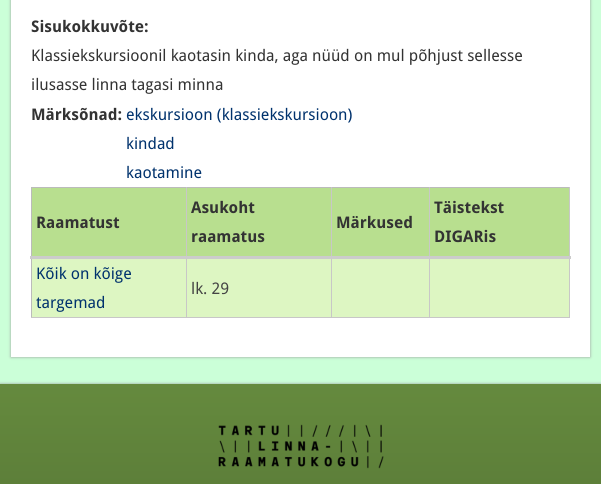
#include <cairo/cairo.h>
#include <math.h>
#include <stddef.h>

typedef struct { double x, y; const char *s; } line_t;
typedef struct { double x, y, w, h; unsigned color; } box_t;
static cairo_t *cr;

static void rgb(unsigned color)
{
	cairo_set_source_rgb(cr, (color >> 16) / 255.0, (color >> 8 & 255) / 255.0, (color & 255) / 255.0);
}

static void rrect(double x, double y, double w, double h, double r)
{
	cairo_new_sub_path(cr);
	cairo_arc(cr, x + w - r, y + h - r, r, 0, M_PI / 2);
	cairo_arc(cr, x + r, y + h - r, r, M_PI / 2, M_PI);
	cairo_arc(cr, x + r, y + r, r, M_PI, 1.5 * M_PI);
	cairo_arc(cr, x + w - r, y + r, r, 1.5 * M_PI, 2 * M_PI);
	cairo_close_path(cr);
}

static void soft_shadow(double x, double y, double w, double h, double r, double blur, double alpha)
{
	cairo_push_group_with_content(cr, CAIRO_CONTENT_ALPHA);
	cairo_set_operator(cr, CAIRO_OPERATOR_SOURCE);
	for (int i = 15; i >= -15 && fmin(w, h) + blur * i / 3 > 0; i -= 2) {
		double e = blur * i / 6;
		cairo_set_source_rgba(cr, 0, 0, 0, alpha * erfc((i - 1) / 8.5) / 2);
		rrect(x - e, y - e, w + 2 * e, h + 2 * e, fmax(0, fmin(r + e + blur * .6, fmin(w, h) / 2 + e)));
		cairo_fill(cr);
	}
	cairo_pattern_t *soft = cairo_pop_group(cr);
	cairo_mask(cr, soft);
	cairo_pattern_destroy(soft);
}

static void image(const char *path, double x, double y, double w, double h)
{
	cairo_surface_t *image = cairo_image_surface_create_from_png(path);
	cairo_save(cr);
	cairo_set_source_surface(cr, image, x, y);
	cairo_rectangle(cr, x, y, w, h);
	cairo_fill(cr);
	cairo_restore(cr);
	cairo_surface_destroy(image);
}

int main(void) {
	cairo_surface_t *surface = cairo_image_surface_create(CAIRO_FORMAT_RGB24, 601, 484);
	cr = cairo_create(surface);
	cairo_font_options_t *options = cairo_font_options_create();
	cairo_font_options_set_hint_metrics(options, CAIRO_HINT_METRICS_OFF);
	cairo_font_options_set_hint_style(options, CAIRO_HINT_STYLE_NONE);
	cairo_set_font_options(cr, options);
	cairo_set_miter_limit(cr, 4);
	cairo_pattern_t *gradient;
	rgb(0xcbffd8);
	cairo_paint(cr);
	rgb(0x999999);
	soft_shadow(11, -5, 579, 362, 0, 1.5, 1);
	{
		static const box_t items[] = {
			{11, 0, 579, 357, 0xffffff},
			{31, 187, 539, 1, 0xbbbbbb},
			{31, 187, 1, 131, 0xbbbbbb},
			{32, 188, 154, 68, 0xb8df8f},
			{187, 188, 144, 68, 0xb8df8f},
			{332, 188, 97, 68, 0xb8df8f},
			{430, 188, 139, 68, 0xb8df8f},
			{569, 187, 1, 131, 0xc8c7c7},
			{429, 317, 141, 1, 0xc8c7c7},
			{429, 187, 1, 131, 0xc8c7c7},
			{331, 317, 99, 1, 0xc8c7c7},
			{331, 187, 1, 131, 0xc8c7c7},
			{186, 317, 146, 1, 0xc8c7c7},
			{186, 187, 1, 131, 0xc8c7c7},
			{30, 256, 541, 3, 0xcccccc},
			{32, 259, 154, 58, 0xddf6c2},
			{31, 317, 156, 1, 0xc8c7c7},
			{187, 259, 144, 58, 0xddf6c2},
			{332, 259, 97, 58, 0xddf6c2},
			{430, 259, 139, 58, 0xddf6c2},
		};
		for (size_t i = 0; i < sizeof items / sizeof *items; i++) {
			rgb(items[i].color);
			cairo_rectangle(cr, items[i].x, items[i].y, items[i].w, items[i].h);
			cairo_fill(cr);
		}
	}
	rgb(0x999999);
	soft_shadow(0, 384, 601, 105, 0, 1.5, 1);
	gradient = cairo_pattern_create_linear(301, 384, 301, 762);
	cairo_pattern_add_color_stop_rgba(gradient, 0, 0.396, 0.541, 0.243, 1);
	cairo_pattern_add_color_stop_rgba(gradient, 1, 0.278, 0.38, 0.173, 1);
	cairo_set_source(cr, gradient);
	cairo_pattern_destroy(gradient);
	cairo_rectangle(cr, 0, 384, 601, 100);
	cairo_fill(cr);
	image("img/1.png", 218, 424, 166, 45);
	cairo_select_font_face(cr, "Droid Sans", CAIRO_FONT_SLANT_NORMAL, CAIRO_FONT_WEIGHT_BOLD);
	cairo_set_font_size(cr, 16);
	rgb(0x333333);
	cairo_move_to(cr, 31, 32);
	cairo_show_text(cr, "Sisukokkuvõte:");
	cairo_select_font_face(cr, "Droid Sans", CAIRO_FONT_SLANT_NORMAL, CAIRO_FONT_WEIGHT_NORMAL);
	cairo_move_to(cr, 31, 61);
	cairo_show_text(cr, "Klassiekskursioonil kaotasin kinda, aga nüüd on mul põhjust sellesse");
	cairo_move_to(cr, 31, 90);
	cairo_show_text(cr, "ilusasse linna tagasi minna");
	cairo_select_font_face(cr, "Droid Sans", CAIRO_FONT_SLANT_NORMAL, CAIRO_FONT_WEIGHT_BOLD);
	cairo_move_to(cr, 31, 120);
	cairo_show_text(cr, "Märksõnad:");
	cairo_select_font_face(cr, "Droid Sans", CAIRO_FONT_SLANT_NORMAL, CAIRO_FONT_WEIGHT_NORMAL);
	rgb(0x00326d);
	{
		static const line_t items[] = {
			{126, 120, "ekskursioon (klassiekskursioon)"},
			{126, 149, "kindad"},
			{126, 178, "kaotamine"},
		};
		for (size_t i = 0; i < sizeof items / sizeof *items; i++) {
			cairo_move_to(cr, items[i].x, items[i].y);
			cairo_show_text(cr, items[i].s);
		}
	}
	cairo_select_font_face(cr, "Droid Sans", CAIRO_FONT_SLANT_NORMAL, CAIRO_FONT_WEIGHT_BOLD);
	rgb(0x333333);
	{
		static const line_t items[] = {
			{36, 228, "Raamatust"},
			{191, 213, "Asukoht"},
			{191, 242, "raamatus"},
			{336, 228, "Märkused"},
			{434, 213, "Täistekst"},
			{434, 242, "DIGARis"},
		};
		for (size_t i = 0; i < sizeof items / sizeof *items; i++) {
			cairo_move_to(cr, items[i].x, items[i].y);
			cairo_show_text(cr, items[i].s);
		}
	}
	cairo_select_font_face(cr, "Droid Sans", CAIRO_FONT_SLANT_NORMAL, CAIRO_FONT_WEIGHT_NORMAL);
	rgb(0x00326d);
	cairo_move_to(cr, 36, 279);
	cairo_show_text(cr, "Kõik on kõige");
	cairo_move_to(cr, 36, 308);
	cairo_show_text(cr, "targemad");
	rgb(0x444444);
	cairo_move_to(cr, 191, 294);
	cairo_show_text(cr, "lk. 29");
	cairo_surface_write_to_png(surface, "page.png");
	cairo_font_options_destroy(options);
	cairo_destroy(cr);
	cairo_surface_destroy(surface);
	return 0;
}
